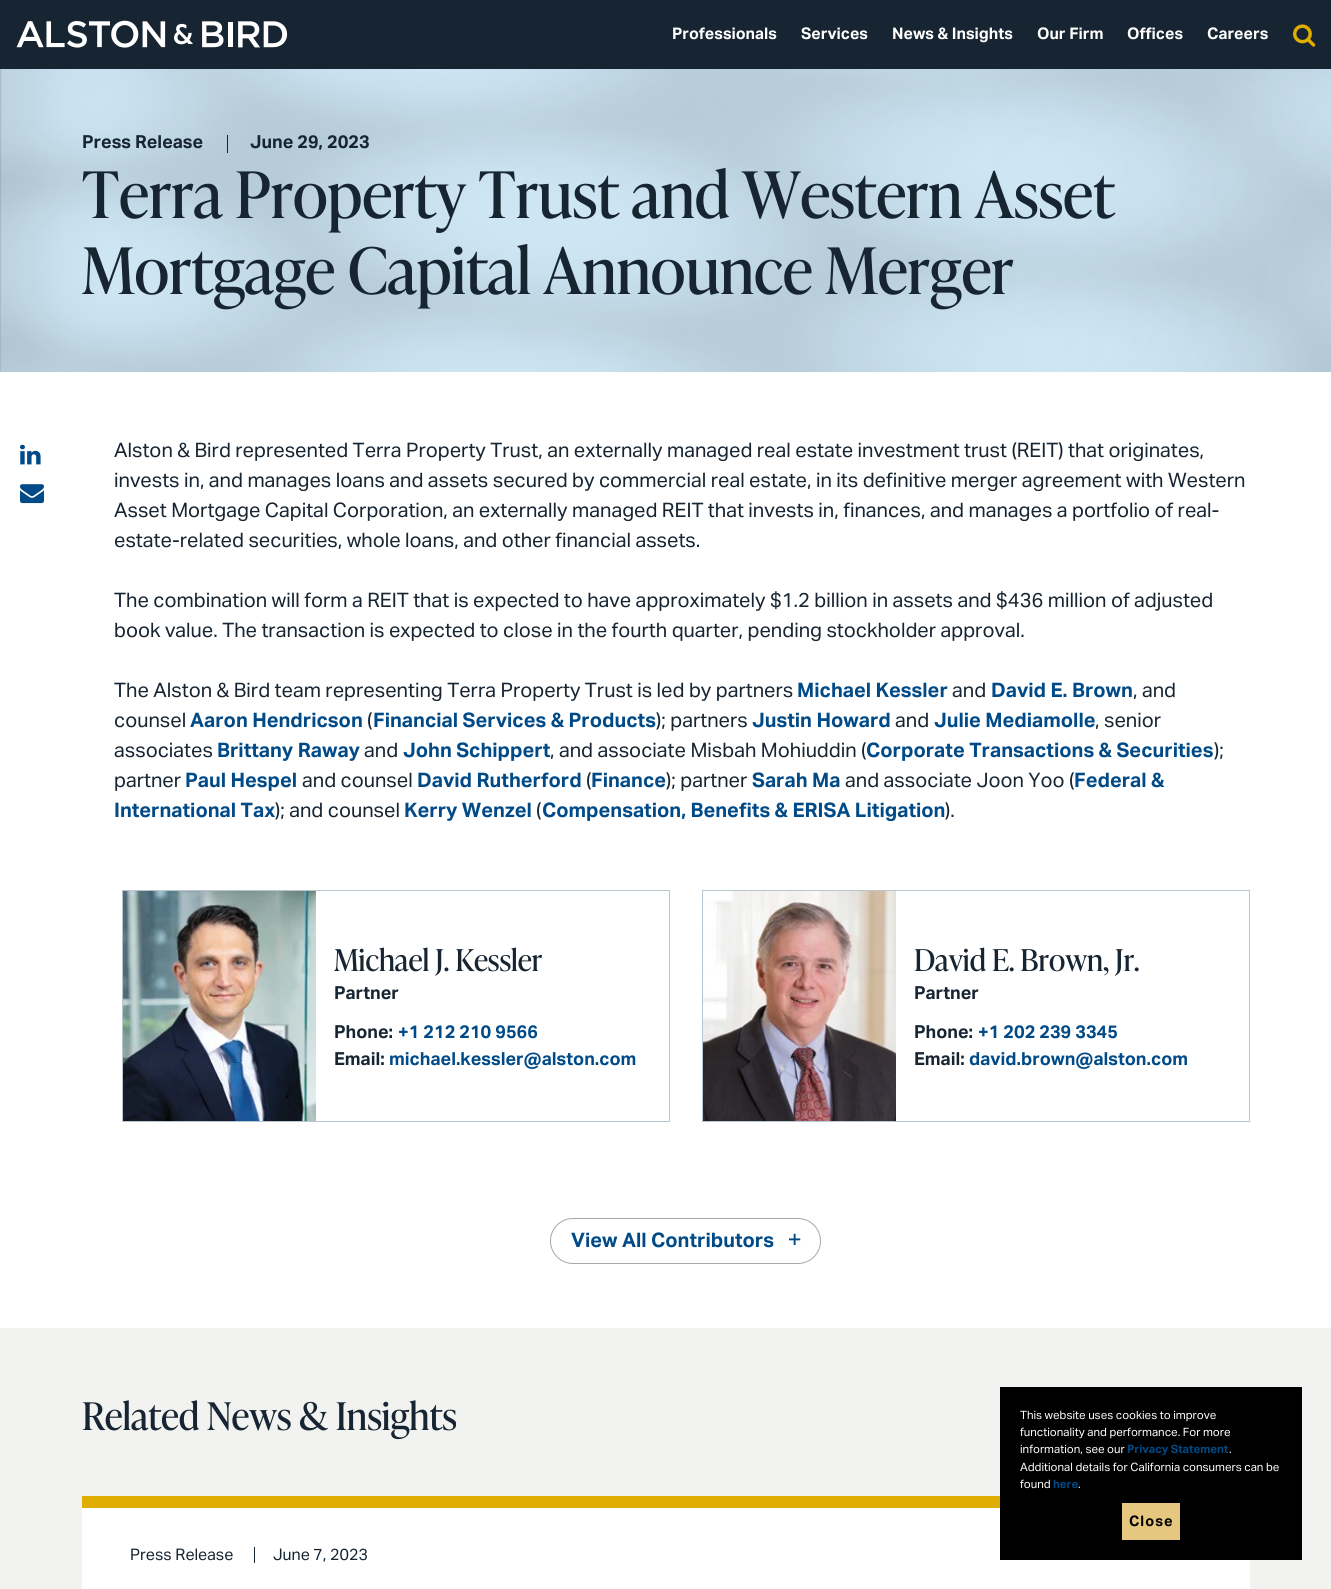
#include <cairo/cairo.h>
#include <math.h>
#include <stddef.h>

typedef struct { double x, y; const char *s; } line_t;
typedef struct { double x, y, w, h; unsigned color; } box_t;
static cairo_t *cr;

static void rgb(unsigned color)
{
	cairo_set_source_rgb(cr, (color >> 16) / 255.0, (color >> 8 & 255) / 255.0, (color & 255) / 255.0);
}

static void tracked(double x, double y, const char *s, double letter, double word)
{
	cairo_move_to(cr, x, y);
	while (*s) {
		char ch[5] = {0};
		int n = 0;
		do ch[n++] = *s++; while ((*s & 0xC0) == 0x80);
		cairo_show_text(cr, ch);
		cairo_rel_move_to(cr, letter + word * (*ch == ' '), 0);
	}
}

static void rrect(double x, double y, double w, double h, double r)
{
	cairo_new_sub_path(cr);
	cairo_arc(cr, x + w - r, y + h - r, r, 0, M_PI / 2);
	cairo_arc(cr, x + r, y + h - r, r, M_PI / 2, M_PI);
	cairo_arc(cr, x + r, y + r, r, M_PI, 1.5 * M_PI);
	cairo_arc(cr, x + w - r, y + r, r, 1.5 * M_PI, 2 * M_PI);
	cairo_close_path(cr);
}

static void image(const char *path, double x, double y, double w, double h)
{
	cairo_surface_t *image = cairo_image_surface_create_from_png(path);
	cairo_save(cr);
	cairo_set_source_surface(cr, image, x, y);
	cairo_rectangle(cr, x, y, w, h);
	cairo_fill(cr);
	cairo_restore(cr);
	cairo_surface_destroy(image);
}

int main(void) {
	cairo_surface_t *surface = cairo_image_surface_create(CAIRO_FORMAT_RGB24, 1331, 1589);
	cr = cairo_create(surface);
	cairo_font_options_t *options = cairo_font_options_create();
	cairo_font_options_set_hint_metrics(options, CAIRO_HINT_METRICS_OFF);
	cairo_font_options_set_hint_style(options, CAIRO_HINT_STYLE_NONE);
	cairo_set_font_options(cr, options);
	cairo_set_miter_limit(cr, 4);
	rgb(0xffffff);
	cairo_paint(cr);
	rgb(0x172532);
	cairo_rectangle(cr, 0, 0, 1331, 69);
	cairo_fill(cr);
	image("img/1.png", 16, 20, 272, 28);
	image("img/2.png", 1293, 24, 23, 23);
	image("img/3.png", 0, 69, 1331, 303);
	cairo_rectangle(cr, 227, 135, 1, 18);
	cairo_fill(cr);
	image("img/4.png", 20, 444, 21, 21);
	image("img/5.png", 20, 484, 24, 20);
	cairo_rectangle(cr, 122.5, 890.5, 547, 231);
	rgb(0xb8c7cf);
	cairo_set_line_width(cr, 1);
	cairo_stroke(cr);
	image("img/6.png", 123, 891, 193, 230);
	cairo_rectangle(cr, 702.5, 890.5, 547, 231);
	cairo_stroke(cr);
	image("img/7.png", 703, 891, 193, 230);
	rrect(550.5, 1218.5, 270, 45, 22.5);
	rgb(0xa8a8a8);
	cairo_stroke(cr);
	image("img/8.png", 789, 1233, 12, 12);
	{
		static const box_t items[] = {
			{0, 1328, 1331, 261, 0xf2f2f0},
			{82, 1496, 918, 12, 0xdfae01},
			{82, 1508, 1168, 81, 0xffffff},
			{254, 1547, 1, 16, 0x172532},
			{1000, 1387, 302, 173, 0x000000},
			{1122, 1503, 58, 37, 0xe5c780},
		};
		for (size_t i = 0; i < sizeof items / sizeof *items; i++) {
			rgb(items[i].color);
			cairo_rectangle(cr, items[i].x, items[i].y, items[i].w, items[i].h);
			cairo_fill(cr);
		}
	}
	cairo_select_font_face(cr, "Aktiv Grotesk", CAIRO_FONT_SLANT_NORMAL, CAIRO_FONT_WEIGHT_BOLD);
	cairo_set_font_size(cr, 16);
	rgb(0xffffff);
	{
		static const line_t items[] = {
			{672, 39, "Professionals"},
			{801, 39, "Services"},
			{892, 39, "News & Insights"},
			{1037, 39, "Our Firm"},
			{1127, 39, "Offices"},
			{1207, 39, "Careers"},
		};
		for (size_t i = 0; i < sizeof items / sizeof *items; i++) {
			cairo_move_to(cr, items[i].x, items[i].y);
			cairo_show_text(cr, items[i].s);
		}
	}
	cairo_set_font_size(cr, 18);
	rgb(0x172532);
	cairo_move_to(cr, 82, 148);
	cairo_show_text(cr, "Press Release");
	cairo_move_to(cr, 250, 148);
	cairo_show_text(cr, "June 29, 2023");
	cairo_select_font_face(cr, "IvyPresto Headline", CAIRO_FONT_SLANT_NORMAL, CAIRO_FONT_WEIGHT_NORMAL);
	cairo_set_font_size(cr, 64);
	cairo_move_to(cr, 82, 218);
	cairo_show_text(cr, "Terra Property Trust and Western Asset");
	cairo_move_to(cr, 82, 294);
	cairo_show_text(cr, "Mortgage Capital Announce Merger");
	cairo_select_font_face(cr, "Aktiv Grotesk", CAIRO_FONT_SLANT_NORMAL, CAIRO_FONT_WEIGHT_NORMAL);
	cairo_set_font_size(cr, 20);
	{
		static const line_t items[] = {
			{114, 457, "Alston & Bird represented Terra Property Trust, an externally managed real estate investment trust (REIT) that originates,"},
			{114, 487, "invests in, and manages loans and assets secured by commercial real estate, in its definitive merger agreement with Western"},
			{114, 517, "Asset Mortgage Capital Corporation, an externally managed REIT that invests in, finances, and manages a portfolio of real-"},
			{114, 547, "estate-related securities, whole loans, and other financial assets."},
			{114, 607, "The combination will form a REIT that is expected to have approximately $1.2 billion in assets and $436 million of adjusted"},
			{114, 637, "book value. The transaction is expected to close in the fourth quarter, pending stockholder approval."},
			{114, 697, "The Alston & Bird team representing Terra Property Trust is led by partners"},
		};
		for (size_t i = 0; i < sizeof items / sizeof *items; i++) {
			cairo_move_to(cr, items[i].x, items[i].y);
			cairo_show_text(cr, items[i].s);
		}
	}
	cairo_select_font_face(cr, "Aktiv Grotesk", CAIRO_FONT_SLANT_NORMAL, CAIRO_FONT_WEIGHT_BOLD);
	rgb(0x004a87);
	cairo_move_to(cr, 797, 697);
	cairo_show_text(cr, "Michael Kessler");
	cairo_select_font_face(cr, "Aktiv Grotesk", CAIRO_FONT_SLANT_NORMAL, CAIRO_FONT_WEIGHT_NORMAL);
	rgb(0x172532);
	cairo_move_to(cr, 952, 697);
	cairo_show_text(cr, "and");
	cairo_select_font_face(cr, "Aktiv Grotesk", CAIRO_FONT_SLANT_NORMAL, CAIRO_FONT_WEIGHT_BOLD);
	rgb(0x004a87);
	cairo_move_to(cr, 991, 697);
	cairo_show_text(cr, "David E. Brown");
	cairo_select_font_face(cr, "Aktiv Grotesk", CAIRO_FONT_SLANT_NORMAL, CAIRO_FONT_WEIGHT_NORMAL);
	rgb(0x172532);
	cairo_move_to(cr, 1133, 697);
	cairo_show_text(cr, ", and");
	cairo_move_to(cr, 114, 727);
	cairo_show_text(cr, "counsel");
	cairo_select_font_face(cr, "Aktiv Grotesk", CAIRO_FONT_SLANT_NORMAL, CAIRO_FONT_WEIGHT_BOLD);
	rgb(0x004a87);
	cairo_move_to(cr, 190, 727);
	cairo_show_text(cr, "Aaron Hendricson");
	cairo_select_font_face(cr, "Aktiv Grotesk", CAIRO_FONT_SLANT_NORMAL, CAIRO_FONT_WEIGHT_NORMAL);
	rgb(0x172532);
	cairo_move_to(cr, 367, 727);
	cairo_show_text(cr, "(");
	cairo_select_font_face(cr, "Aktiv Grotesk", CAIRO_FONT_SLANT_NORMAL, CAIRO_FONT_WEIGHT_BOLD);
	rgb(0x004a87);
	cairo_move_to(cr, 373, 727);
	cairo_show_text(cr, "Financial Services & Products");
	cairo_select_font_face(cr, "Aktiv Grotesk", CAIRO_FONT_SLANT_NORMAL, CAIRO_FONT_WEIGHT_NORMAL);
	rgb(0x172532);
	cairo_move_to(cr, 656, 727);
	cairo_show_text(cr, "); partners");
	cairo_select_font_face(cr, "Aktiv Grotesk", CAIRO_FONT_SLANT_NORMAL, CAIRO_FONT_WEIGHT_BOLD);
	rgb(0x004a87);
	cairo_move_to(cr, 752, 727);
	cairo_show_text(cr, "Justin Howard");
	cairo_select_font_face(cr, "Aktiv Grotesk", CAIRO_FONT_SLANT_NORMAL, CAIRO_FONT_WEIGHT_NORMAL);
	rgb(0x172532);
	cairo_move_to(cr, 895, 727);
	cairo_show_text(cr, "and");
	cairo_select_font_face(cr, "Aktiv Grotesk", CAIRO_FONT_SLANT_NORMAL, CAIRO_FONT_WEIGHT_BOLD);
	rgb(0x004a87);
	cairo_move_to(cr, 934, 727);
	cairo_show_text(cr, "Julie Mediamolle");
	cairo_select_font_face(cr, "Aktiv Grotesk", CAIRO_FONT_SLANT_NORMAL, CAIRO_FONT_WEIGHT_NORMAL);
	rgb(0x172532);
	cairo_move_to(cr, 1095, 727);
	cairo_show_text(cr, ", senior");
	cairo_move_to(cr, 114, 757);
	cairo_show_text(cr, "associates");
	cairo_select_font_face(cr, "Aktiv Grotesk", CAIRO_FONT_SLANT_NORMAL, CAIRO_FONT_WEIGHT_BOLD);
	rgb(0x004a87);
	cairo_move_to(cr, 217, 757);
	cairo_show_text(cr, "Brittany Raway");
	cairo_select_font_face(cr, "Aktiv Grotesk", CAIRO_FONT_SLANT_NORMAL, CAIRO_FONT_WEIGHT_NORMAL);
	rgb(0x172532);
	cairo_move_to(cr, 364, 757);
	cairo_show_text(cr, "and");
	cairo_select_font_face(cr, "Aktiv Grotesk", CAIRO_FONT_SLANT_NORMAL, CAIRO_FONT_WEIGHT_BOLD);
	rgb(0x004a87);
	cairo_move_to(cr, 403, 757);
	cairo_show_text(cr, "John Schippert");
	cairo_select_font_face(cr, "Aktiv Grotesk", CAIRO_FONT_SLANT_NORMAL, CAIRO_FONT_WEIGHT_NORMAL);
	rgb(0x172532);
	cairo_move_to(cr, 550, 757);
	cairo_show_text(cr, ", and associate Misbah Mohiuddin (");
	cairo_select_font_face(cr, "Aktiv Grotesk", CAIRO_FONT_SLANT_NORMAL, CAIRO_FONT_WEIGHT_BOLD);
	rgb(0x004a87);
	cairo_move_to(cr, 866, 757);
	cairo_show_text(cr, "Corporate Transactions & Securities");
	cairo_select_font_face(cr, "Aktiv Grotesk", CAIRO_FONT_SLANT_NORMAL, CAIRO_FONT_WEIGHT_NORMAL);
	rgb(0x172532);
	cairo_move_to(cr, 1214, 757);
	cairo_show_text(cr, ");");
	cairo_move_to(cr, 114, 787);
	cairo_show_text(cr, "partner");
	cairo_select_font_face(cr, "Aktiv Grotesk", CAIRO_FONT_SLANT_NORMAL, CAIRO_FONT_WEIGHT_BOLD);
	rgb(0x004a87);
	cairo_move_to(cr, 185, 787);
	cairo_show_text(cr, "Paul Hespel");
	cairo_select_font_face(cr, "Aktiv Grotesk", CAIRO_FONT_SLANT_NORMAL, CAIRO_FONT_WEIGHT_NORMAL);
	rgb(0x172532);
	cairo_move_to(cr, 302, 787);
	cairo_show_text(cr, "and counsel");
	cairo_select_font_face(cr, "Aktiv Grotesk", CAIRO_FONT_SLANT_NORMAL, CAIRO_FONT_WEIGHT_BOLD);
	rgb(0x004a87);
	cairo_move_to(cr, 417, 787);
	cairo_show_text(cr, "David Rutherford");
	cairo_select_font_face(cr, "Aktiv Grotesk", CAIRO_FONT_SLANT_NORMAL, CAIRO_FONT_WEIGHT_NORMAL);
	rgb(0x172532);
	cairo_move_to(cr, 586, 787);
	cairo_show_text(cr, "(");
	cairo_select_font_face(cr, "Aktiv Grotesk", CAIRO_FONT_SLANT_NORMAL, CAIRO_FONT_WEIGHT_BOLD);
	rgb(0x004a87);
	cairo_move_to(cr, 591, 787);
	cairo_show_text(cr, "Finance");
	cairo_select_font_face(cr, "Aktiv Grotesk", CAIRO_FONT_SLANT_NORMAL, CAIRO_FONT_WEIGHT_NORMAL);
	rgb(0x172532);
	cairo_move_to(cr, 666, 787);
	cairo_show_text(cr, "); partner");
	cairo_select_font_face(cr, "Aktiv Grotesk", CAIRO_FONT_SLANT_NORMAL, CAIRO_FONT_WEIGHT_BOLD);
	rgb(0x004a87);
	cairo_move_to(cr, 752, 787);
	cairo_show_text(cr, "Sarah Ma");
	cairo_select_font_face(cr, "Aktiv Grotesk", CAIRO_FONT_SLANT_NORMAL, CAIRO_FONT_WEIGHT_NORMAL);
	rgb(0x172532);
	cairo_move_to(cr, 845, 787);
	cairo_show_text(cr, "and associate Joon Yoo (");
	cairo_select_font_face(cr, "Aktiv Grotesk", CAIRO_FONT_SLANT_NORMAL, CAIRO_FONT_WEIGHT_BOLD);
	rgb(0x004a87);
	cairo_move_to(cr, 1074, 787);
	cairo_show_text(cr, "Federal &");
	cairo_move_to(cr, 114, 817);
	cairo_show_text(cr, "International Tax");
	cairo_select_font_face(cr, "Aktiv Grotesk", CAIRO_FONT_SLANT_NORMAL, CAIRO_FONT_WEIGHT_NORMAL);
	rgb(0x172532);
	cairo_move_to(cr, 275, 817);
	cairo_show_text(cr, "); and counsel");
	cairo_select_font_face(cr, "Aktiv Grotesk", CAIRO_FONT_SLANT_NORMAL, CAIRO_FONT_WEIGHT_BOLD);
	rgb(0x004a87);
	cairo_move_to(cr, 404, 817);
	cairo_show_text(cr, "Kerry Wenzel");
	cairo_select_font_face(cr, "Aktiv Grotesk", CAIRO_FONT_SLANT_NORMAL, CAIRO_FONT_WEIGHT_NORMAL);
	rgb(0x172532);
	cairo_move_to(cr, 536, 817);
	cairo_show_text(cr, "(");
	cairo_select_font_face(cr, "Aktiv Grotesk", CAIRO_FONT_SLANT_NORMAL, CAIRO_FONT_WEIGHT_BOLD);
	rgb(0x004a87);
	cairo_move_to(cr, 542, 817);
	cairo_show_text(cr, "Compensation, Benefits & ERISA Litigation");
	cairo_select_font_face(cr, "Aktiv Grotesk", CAIRO_FONT_SLANT_NORMAL, CAIRO_FONT_WEIGHT_NORMAL);
	rgb(0x172532);
	cairo_move_to(cr, 945, 817);
	cairo_show_text(cr, ").");
	cairo_select_font_face(cr, "IvyPresto Headline", CAIRO_FONT_SLANT_NORMAL, CAIRO_FONT_WEIGHT_NORMAL);
	cairo_set_font_size(cr, 30);
	cairo_move_to(cr, 334, 971);
	cairo_show_text(cr, "Michael J. Kessler");
	cairo_select_font_face(cr, "Aktiv Grotesk", CAIRO_FONT_SLANT_NORMAL, CAIRO_FONT_WEIGHT_BOLD);
	cairo_set_font_size(cr, 18);
	cairo_move_to(cr, 334, 999);
	cairo_show_text(cr, "Partner");
	cairo_move_to(cr, 334, 1038);
	cairo_show_text(cr, "Phone:");
	rgb(0x004a87);
	cairo_move_to(cr, 398, 1038);
	cairo_show_text(cr, "+1 212 210 9566");
	rgb(0x172532);
	cairo_move_to(cr, 334, 1065);
	cairo_show_text(cr, "Email:");
	rgb(0x004a87);
	cairo_move_to(cr, 389, 1065);
	cairo_show_text(cr, "michael.kessler@alston.com");
	cairo_select_font_face(cr, "IvyPresto Headline", CAIRO_FONT_SLANT_NORMAL, CAIRO_FONT_WEIGHT_NORMAL);
	cairo_set_font_size(cr, 30);
	rgb(0x172532);
	cairo_move_to(cr, 914, 971);
	cairo_show_text(cr, "David E. Brown, Jr.");
	cairo_select_font_face(cr, "Aktiv Grotesk", CAIRO_FONT_SLANT_NORMAL, CAIRO_FONT_WEIGHT_BOLD);
	cairo_set_font_size(cr, 18);
	cairo_move_to(cr, 914, 999);
	cairo_show_text(cr, "Partner");
	cairo_move_to(cr, 914, 1038);
	cairo_show_text(cr, "Phone:");
	rgb(0x004a87);
	cairo_move_to(cr, 978, 1038);
	cairo_show_text(cr, "+1 202 239 3345");
	rgb(0x172532);
	cairo_move_to(cr, 914, 1065);
	cairo_show_text(cr, "Email:");
	rgb(0x004a87);
	cairo_move_to(cr, 969, 1065);
	cairo_show_text(cr, "david.brown@alston.com");
	cairo_set_font_size(cr, 20);
	cairo_move_to(cr, 571, 1247);
	cairo_show_text(cr, "View All Contributors");
	cairo_select_font_face(cr, "IvyPresto Headline", CAIRO_FONT_SLANT_NORMAL, CAIRO_FONT_WEIGHT_NORMAL);
	cairo_set_font_size(cr, 38);
	rgb(0x172532);
	cairo_move_to(cr, 82, 1430);
	cairo_show_text(cr, "Related News & Insights");
	cairo_select_font_face(cr, "Aktiv Grotesk", CAIRO_FONT_SLANT_NORMAL, CAIRO_FONT_WEIGHT_NORMAL);
	cairo_set_font_size(cr, 16);
	cairo_move_to(cr, 130, 1560);
	cairo_show_text(cr, "Press Release");
	cairo_move_to(cr, 273, 1560);
	cairo_show_text(cr, "June 7, 2023");
	cairo_set_font_size(cr, 11.5);
	rgb(0xffffff);
	{
		static const line_t items[] = {
			{1020, 1419, "This website uses cookies to improve"},
			{1020, 1436, "functionality and performance. For more"},
			{1020, 1453, "information, see our"},
		};
		for (size_t i = 0; i < sizeof items / sizeof *items; i++) {
			cairo_move_to(cr, items[i].x, items[i].y);
			cairo_show_text(cr, items[i].s);
		}
	}
	cairo_select_font_face(cr, "Aktiv Grotesk", CAIRO_FONT_SLANT_NORMAL, CAIRO_FONT_WEIGHT_BOLD);
	rgb(0x004a87);
	cairo_move_to(cr, 1127, 1453);
	cairo_show_text(cr, "Privacy Statement");
	cairo_select_font_face(cr, "Aktiv Grotesk", CAIRO_FONT_SLANT_NORMAL, CAIRO_FONT_WEIGHT_NORMAL);
	rgb(0xffffff);
	{
		static const line_t items[] = {
			{1229, 1453, "."},
			{1020, 1471, "Additional details for California consumers can be"},
			{1020, 1488, "found"},
		};
		for (size_t i = 0; i < sizeof items / sizeof *items; i++) {
			cairo_move_to(cr, items[i].x, items[i].y);
			cairo_show_text(cr, items[i].s);
		}
	}
	cairo_select_font_face(cr, "Aktiv Grotesk", CAIRO_FONT_SLANT_NORMAL, CAIRO_FONT_WEIGHT_BOLD);
	rgb(0x004a87);
	cairo_move_to(cr, 1053, 1488);
	cairo_show_text(cr, "here");
	cairo_select_font_face(cr, "Aktiv Grotesk", CAIRO_FONT_SLANT_NORMAL, CAIRO_FONT_WEIGHT_NORMAL);
	rgb(0xffffff);
	cairo_move_to(cr, 1078, 1488);
	cairo_show_text(cr, ".");
	cairo_select_font_face(cr, "Aktiv Grotesk", CAIRO_FONT_SLANT_NORMAL, CAIRO_FONT_WEIGHT_BOLD);
	cairo_set_font_size(cr, 14.5);
	rgb(0x000000);
	tracked(1129, 1526, "Close", 1, 0);
	cairo_surface_write_to_png(surface, "page.png");
	cairo_font_options_destroy(options);
	cairo_destroy(cr);
	cairo_surface_destroy(surface);
	return 0;
}
